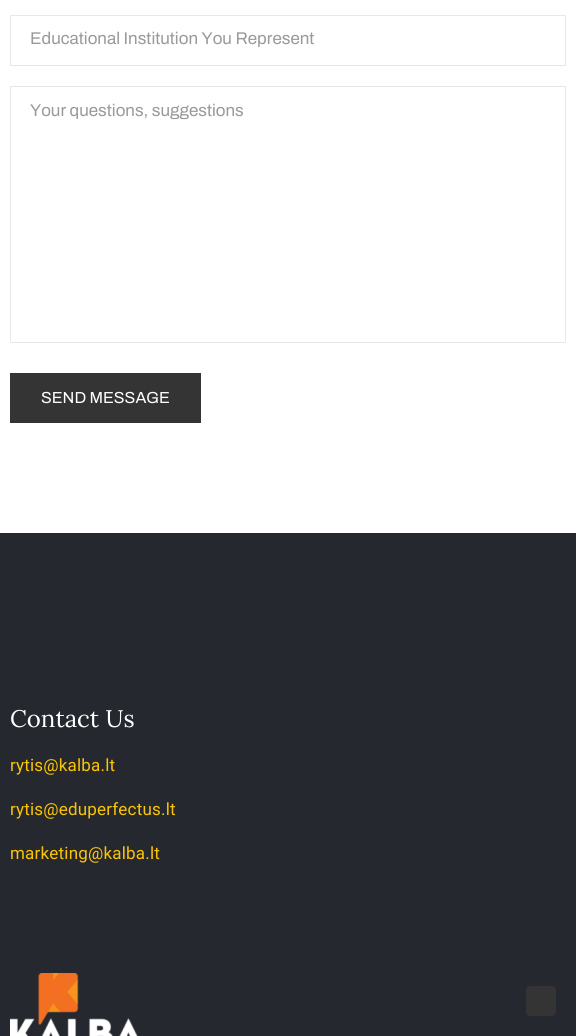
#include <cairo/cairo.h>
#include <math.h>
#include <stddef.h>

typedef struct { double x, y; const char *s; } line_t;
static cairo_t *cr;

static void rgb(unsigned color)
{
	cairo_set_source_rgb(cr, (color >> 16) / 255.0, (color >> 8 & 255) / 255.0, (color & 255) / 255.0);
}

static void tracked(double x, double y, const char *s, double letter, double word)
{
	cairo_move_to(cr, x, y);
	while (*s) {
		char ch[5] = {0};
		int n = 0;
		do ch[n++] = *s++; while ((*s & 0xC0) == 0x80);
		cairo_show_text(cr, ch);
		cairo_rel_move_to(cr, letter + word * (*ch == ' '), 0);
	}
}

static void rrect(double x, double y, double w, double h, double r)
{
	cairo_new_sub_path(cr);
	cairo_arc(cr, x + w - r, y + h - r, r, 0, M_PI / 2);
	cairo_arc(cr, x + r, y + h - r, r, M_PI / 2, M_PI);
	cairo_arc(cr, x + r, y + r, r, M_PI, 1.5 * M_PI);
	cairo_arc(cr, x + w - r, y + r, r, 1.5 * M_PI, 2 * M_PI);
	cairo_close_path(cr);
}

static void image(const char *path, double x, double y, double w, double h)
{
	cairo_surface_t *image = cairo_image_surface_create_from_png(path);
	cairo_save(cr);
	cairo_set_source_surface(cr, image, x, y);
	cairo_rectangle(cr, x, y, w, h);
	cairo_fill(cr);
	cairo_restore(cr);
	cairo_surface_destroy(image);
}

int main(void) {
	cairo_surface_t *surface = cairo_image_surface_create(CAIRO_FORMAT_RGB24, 576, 1036);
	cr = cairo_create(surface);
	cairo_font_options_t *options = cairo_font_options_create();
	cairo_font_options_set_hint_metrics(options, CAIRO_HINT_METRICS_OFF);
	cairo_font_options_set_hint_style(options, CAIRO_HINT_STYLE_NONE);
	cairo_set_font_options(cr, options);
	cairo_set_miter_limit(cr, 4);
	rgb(0xffffff);
	cairo_paint(cr);
	cairo_rectangle(cr, 10.5, 15.5, 555, 50);
	rgb(0xe8e8e8);
	cairo_set_line_width(cr, 1);
	cairo_stroke(cr);
	cairo_rectangle(cr, 10.5, 86.5, 555, 256);
	cairo_stroke(cr);
	rgb(0x343434);
	cairo_rectangle(cr, 10, 373, 191, 50);
	cairo_fill(cr);
	rgb(0x25282e);
	cairo_rectangle(cr, 0, 533, 576, 503);
	cairo_fill(cr);
	image("img/1.png", 10, 973, 128, 63);
	rgb(0x343434);
	rrect(526, 986, 30, 30, 4);
	cairo_fill(cr);
	cairo_select_font_face(cr, "Archivo", CAIRO_FONT_SLANT_NORMAL, CAIRO_FONT_WEIGHT_NORMAL);
	cairo_set_font_size(cr, 17);
	rgb(0x999999);
	cairo_move_to(cr, 30, 44);
	cairo_show_text(cr, "Educational Institution You Represent");
	cairo_move_to(cr, 30, 116);
	cairo_show_text(cr, "Your questions, suggestions");
	cairo_set_font_size(cr, 16);
	rgb(0xffffff);
	cairo_move_to(cr, 41, 403);
	cairo_show_text(cr, "SEND MESSAGE");
	cairo_select_font_face(cr, "Lora", CAIRO_FONT_SLANT_NORMAL, CAIRO_FONT_WEIGHT_NORMAL);
	cairo_set_font_size(cr, 24);
	cairo_move_to(cr, 10, 727);
	cairo_show_text(cr, "Contact Us");
	cairo_select_font_face(cr, "Roboto", CAIRO_FONT_SLANT_NORMAL, CAIRO_FONT_WEIGHT_NORMAL);
	cairo_set_font_size(cr, 17);
	rgb(0xfcc404);
	{
		static const line_t items[] = {
			{10, 771, "rytis@kalba.lt"},
			{10, 815, "rytis@eduperfectus.lt"},
			{10, 859, "marketing@kalba.lt"},
		};
		for (size_t i = 0; i < sizeof items / sizeof *items; i++) {
			tracked(items[i].x, items[i].y, items[i].s, 0.2, 0);
		}
	}
	cairo_surface_write_to_png(surface, "page.png");
	cairo_font_options_destroy(options);
	cairo_destroy(cr);
	cairo_surface_destroy(surface);
	return 0;
}
